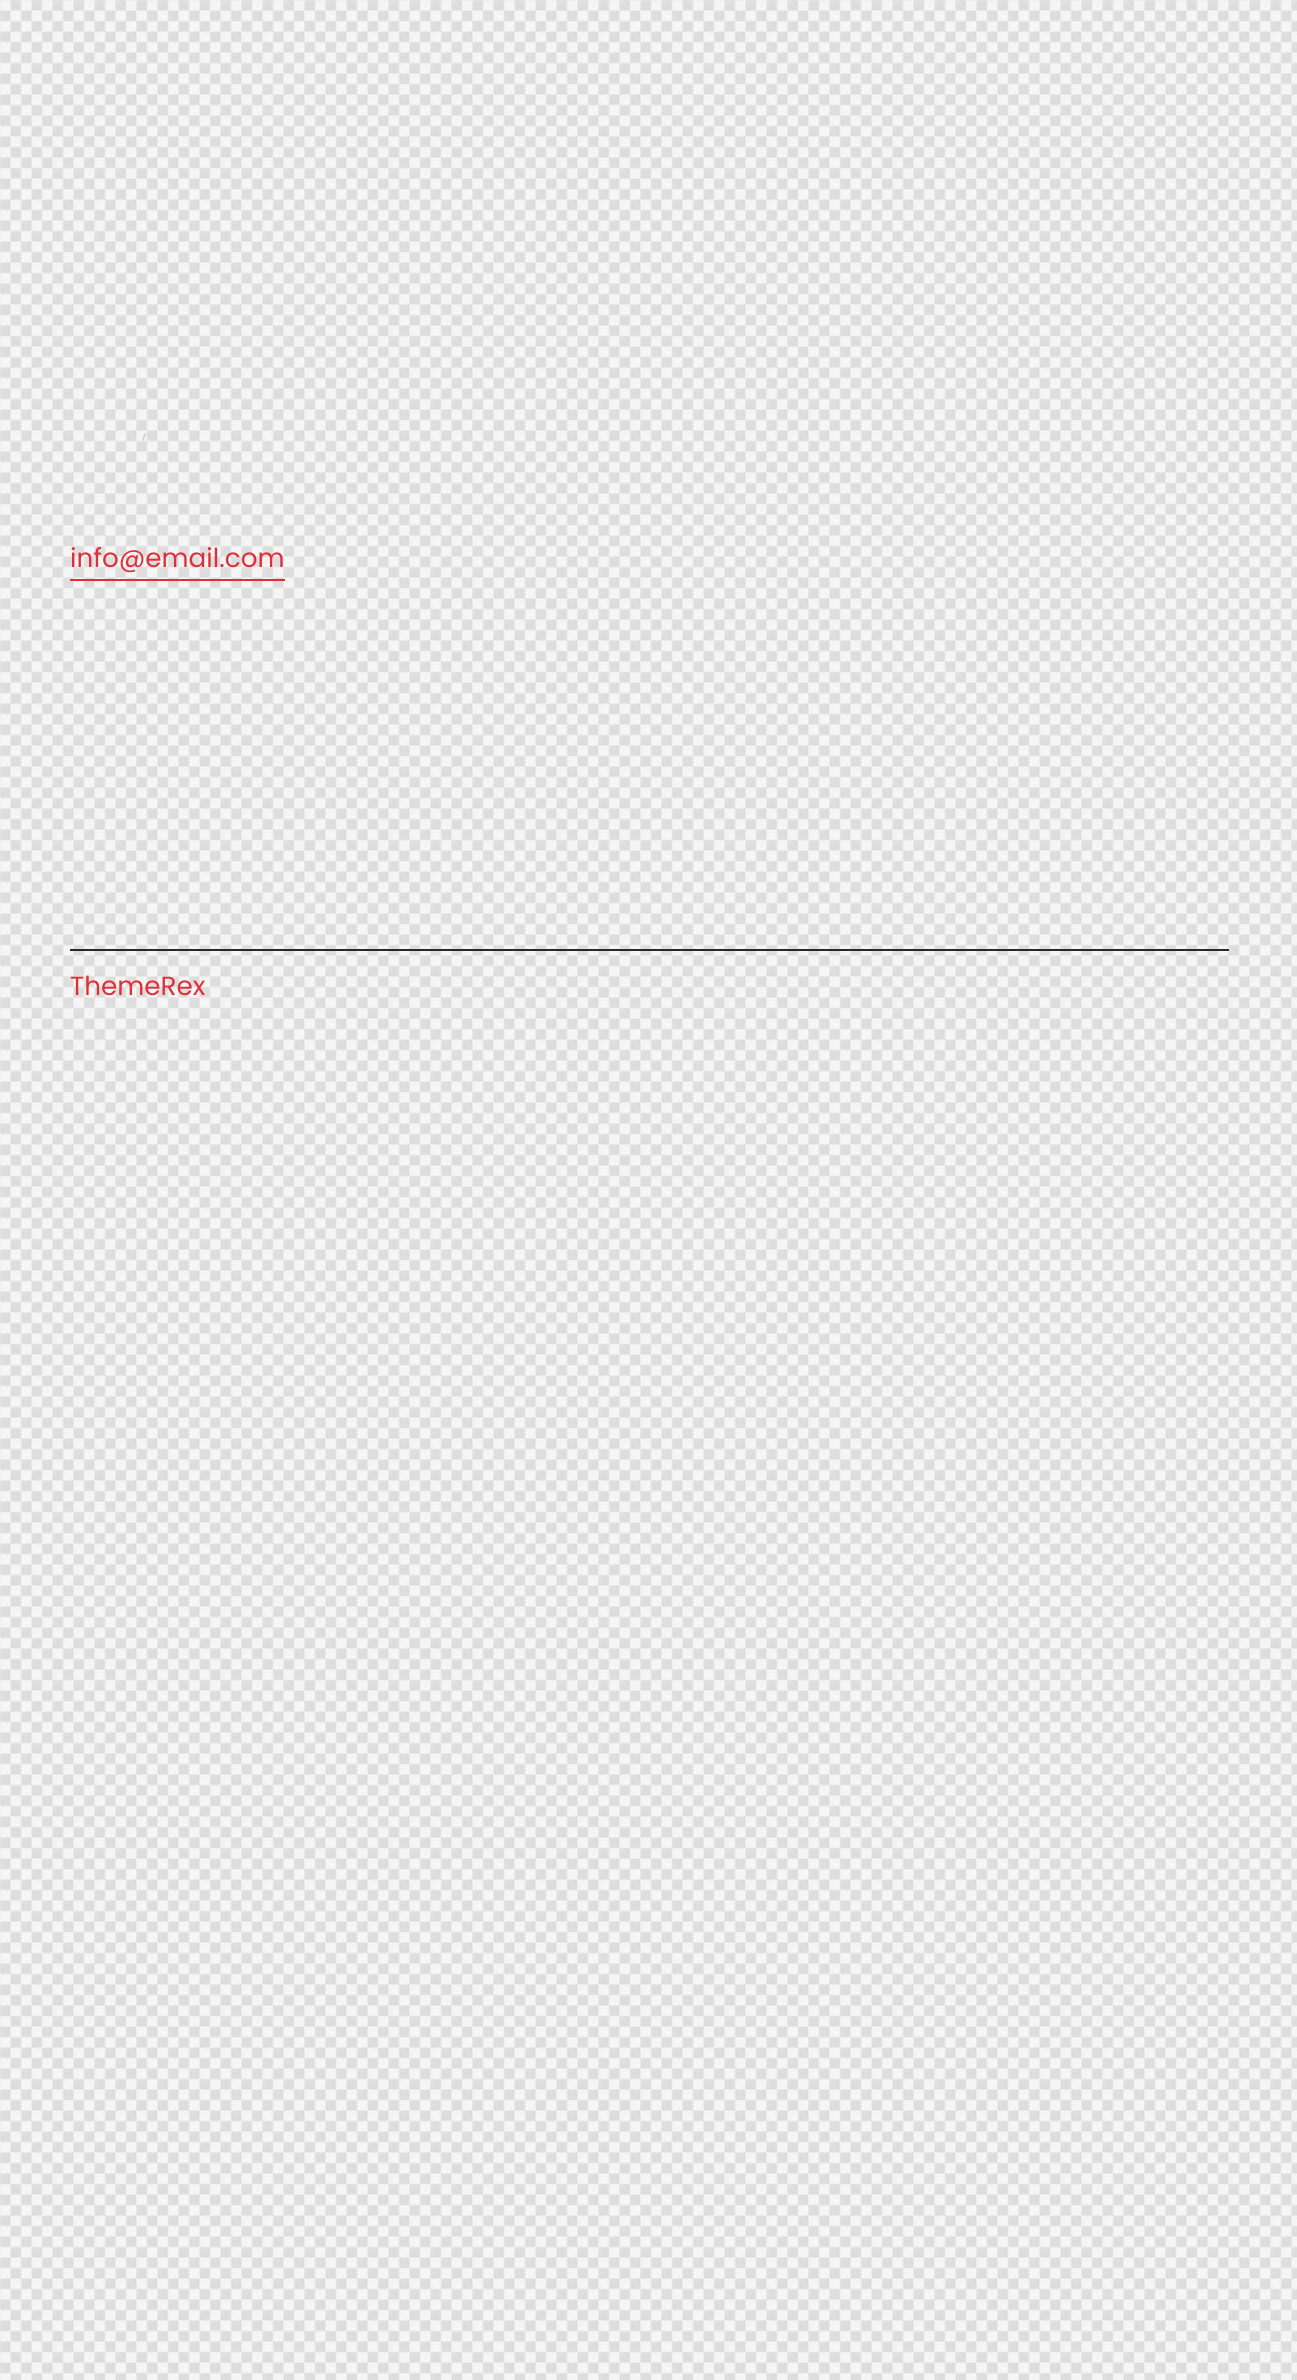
#include <cairo/cairo.h>
#include <math.h>
#include <stddef.h>

static cairo_t *cr;

static void rgb(unsigned color)
{
	cairo_set_source_rgb(cr, (color >> 16) / 255.0, (color >> 8 & 255) / 255.0, (color & 255) / 255.0);
}

static void image(const char *path, double x, double y, double w, double h)
{
	cairo_surface_t *image = cairo_image_surface_create_from_png(path);
	cairo_save(cr);
	cairo_set_source_surface(cr, image, x, y);
	cairo_rectangle(cr, x, y, w, h);
	cairo_fill(cr);
	cairo_restore(cr);
	cairo_surface_destroy(image);
}

int main(void) {
	cairo_surface_t *surface = cairo_image_surface_create(CAIRO_FORMAT_RGB24, 1297, 2380);
	cr = cairo_create(surface);
	cairo_font_options_t *options = cairo_font_options_create();
	cairo_font_options_set_hint_metrics(options, CAIRO_HINT_METRICS_OFF);
	cairo_font_options_set_hint_style(options, CAIRO_HINT_STYLE_NONE);
	cairo_set_font_options(cr, options);
	cairo_set_miter_limit(cr, 4);
	rgb(0xffffff);
	cairo_paint(cr);
	image("img/1.png", 0, 0, 1297, 2380);
	rgb(0xe22e37);
	cairo_rectangle(cr, 70, 579, 215, 2);
	cairo_fill(cr);
	rgb(0x292929);
	cairo_rectangle(cr, 70, 949, 1159, 2);
	cairo_fill(cr);
	cairo_select_font_face(cr, "Poppins", CAIRO_FONT_SLANT_NORMAL, CAIRO_FONT_WEIGHT_NORMAL);
	cairo_set_font_size(cr, 26.25);
	rgb(0xd2d3d5);
	cairo_move_to(cr, 142, 437);
	cairo_show_text(cr, ",");
	rgb(0xe22e37);
	cairo_move_to(cr, 70, 567);
	cairo_show_text(cr, "info@email.com");
	cairo_move_to(cr, 70, 995);
	cairo_show_text(cr, "ThemeRex");
	cairo_surface_write_to_png(surface, "page.png");
	cairo_font_options_destroy(options);
	cairo_destroy(cr);
	cairo_surface_destroy(surface);
	return 0;
}
